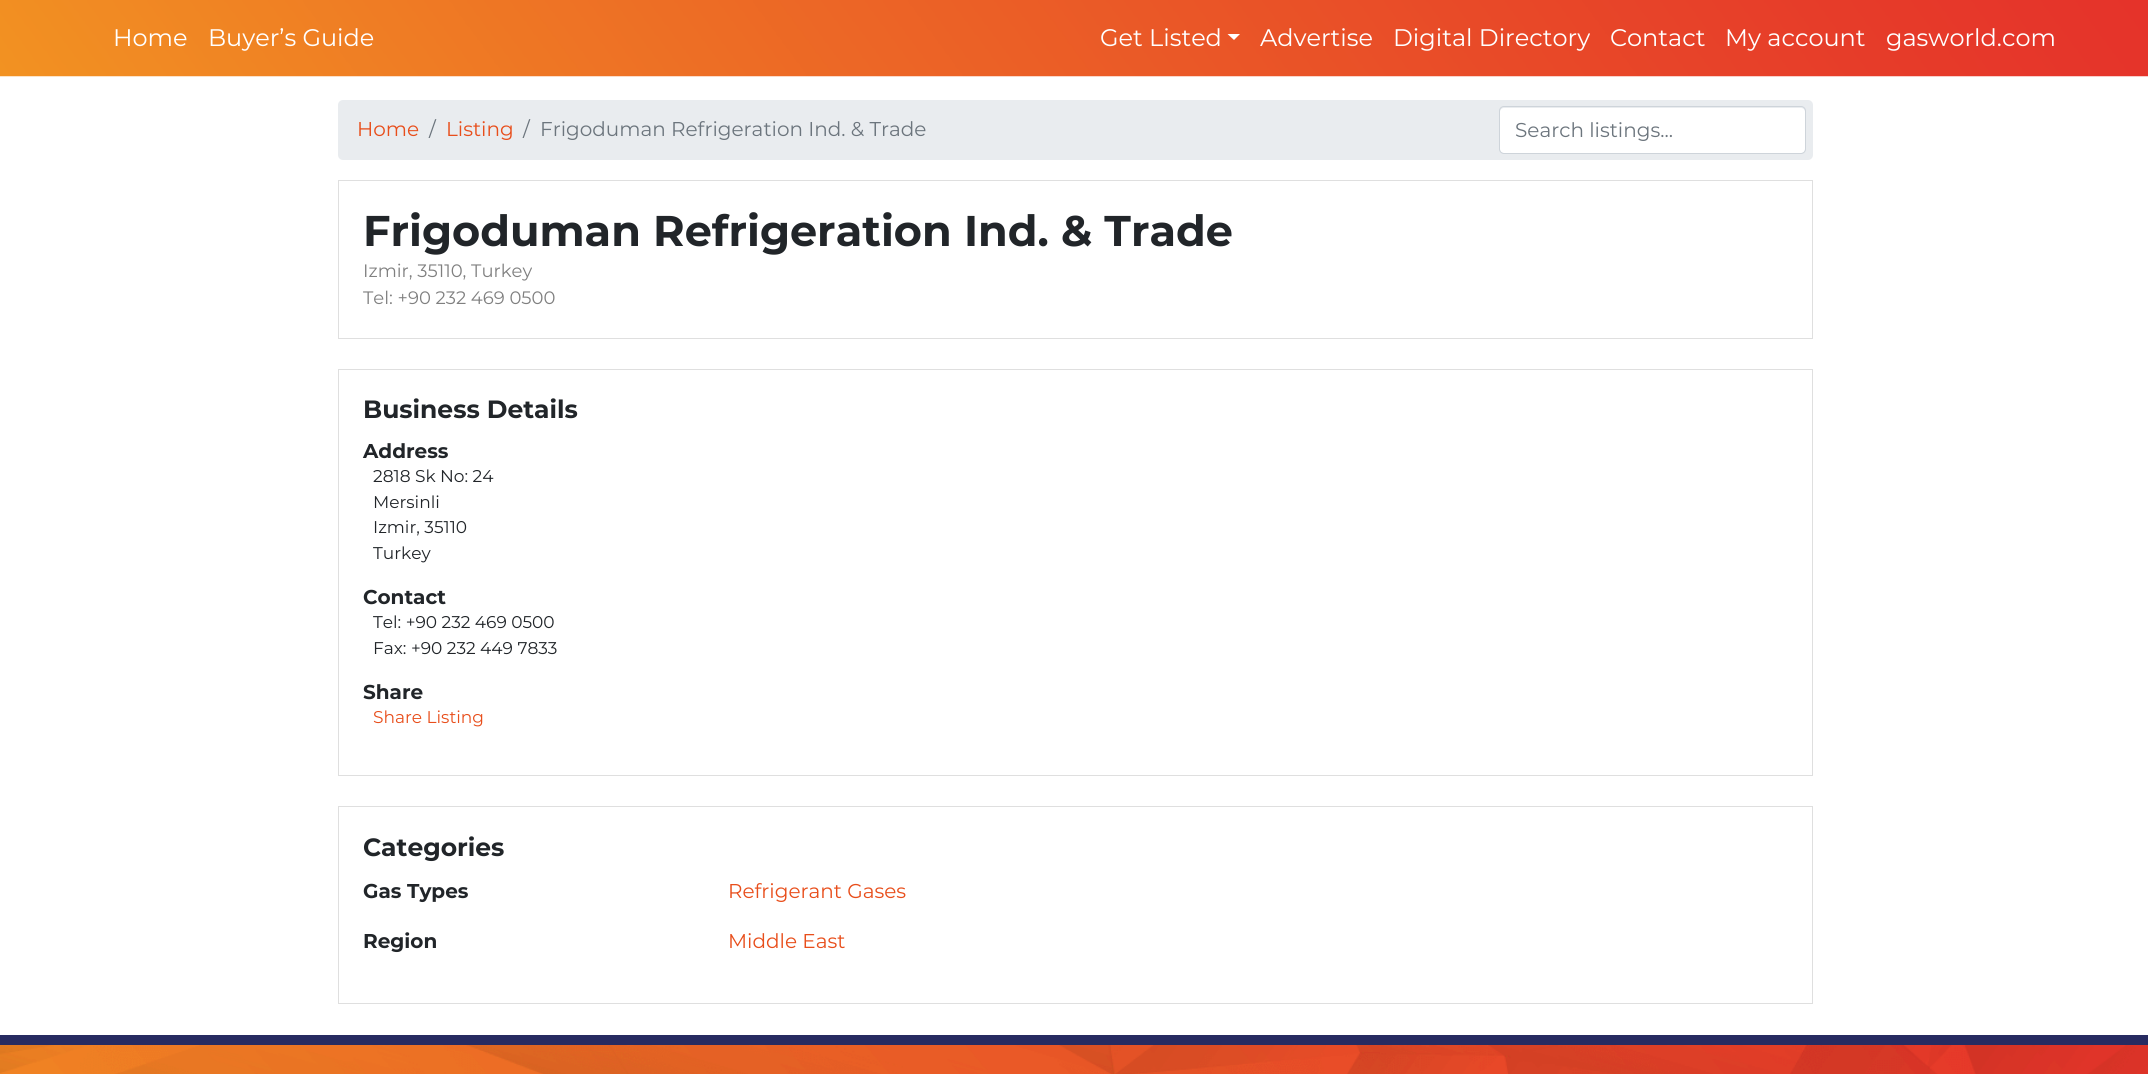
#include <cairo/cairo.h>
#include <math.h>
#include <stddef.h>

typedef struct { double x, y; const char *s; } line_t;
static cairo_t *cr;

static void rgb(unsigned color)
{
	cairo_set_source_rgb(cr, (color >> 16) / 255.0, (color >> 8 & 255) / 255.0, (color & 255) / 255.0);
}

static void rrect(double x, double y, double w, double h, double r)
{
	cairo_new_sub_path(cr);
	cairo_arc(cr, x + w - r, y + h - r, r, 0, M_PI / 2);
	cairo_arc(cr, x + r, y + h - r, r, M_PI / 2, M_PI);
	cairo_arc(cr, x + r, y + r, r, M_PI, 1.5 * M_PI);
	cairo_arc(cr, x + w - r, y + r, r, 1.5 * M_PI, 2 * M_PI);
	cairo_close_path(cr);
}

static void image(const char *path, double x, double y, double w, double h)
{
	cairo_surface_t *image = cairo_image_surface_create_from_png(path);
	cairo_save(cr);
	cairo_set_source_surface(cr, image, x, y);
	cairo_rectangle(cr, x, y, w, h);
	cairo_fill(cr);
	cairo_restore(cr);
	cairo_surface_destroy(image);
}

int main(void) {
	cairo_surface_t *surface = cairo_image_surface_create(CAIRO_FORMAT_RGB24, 2148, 1074);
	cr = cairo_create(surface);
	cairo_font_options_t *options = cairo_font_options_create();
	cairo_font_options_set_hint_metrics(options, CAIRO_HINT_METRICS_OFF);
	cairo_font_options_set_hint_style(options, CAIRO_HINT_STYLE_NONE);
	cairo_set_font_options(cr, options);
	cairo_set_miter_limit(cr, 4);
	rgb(0xffffff);
	cairo_paint(cr);
	image("img/1.png", 0, 0, 2148, 77);
	rgb(0xffffff);
	cairo_new_path(cr);
	cairo_move_to(cr, 1227.5, 34);
	cairo_line_to(cr, 1240, 34);
	cairo_line_to(cr, 1234, 40);
	cairo_close_path(cr);
	cairo_fill(cr);
	rgb(0xe9ecef);
	rrect(338, 100, 1475, 60, 5);
	cairo_fill(cr);
	rgb(0xffffff);
	rrect(1500, 108, 305, 45, 4);
	cairo_fill(cr);
	rrect(1499.5, 106.5, 306, 47, 4.5);
	rgb(0xced4da);
	cairo_set_line_width(cr, 1);
	cairo_stroke(cr);
	cairo_rectangle(cr, 338.5, 180.5, 1474, 158);
	rgb(0xdfdfdf);
	cairo_stroke(cr);
	cairo_rectangle(cr, 338.5, 369.5, 1474, 406);
	cairo_stroke(cr);
	cairo_rectangle(cr, 338.5, 806.5, 1474, 197);
	cairo_stroke(cr);
	image("img/2.png", 0, 1045, 2148, 29);
	rgb(0x272b61);
	cairo_rectangle(cr, 0, 1035, 2148, 10);
	cairo_fill(cr);
	cairo_select_font_face(cr, "Montserrat", CAIRO_FONT_SLANT_NORMAL, CAIRO_FONT_WEIGHT_NORMAL);
	cairo_set_font_size(cr, 24);
	rgb(0xffffff);
	{
		static const line_t items[] = {
			{113, 46, "Home"},
			{208, 46, "Buyer’s Guide"},
			{1100, 46, "Get Listed"},
			{1260, 46, "Advertise"},
			{1393, 46, "Digital Directory"},
			{1610, 46, "Contact"},
			{1725, 46, "My account"},
			{1886, 46, "gasworld.com"},
		};
		for (size_t i = 0; i < sizeof items / sizeof *items; i++) {
			cairo_move_to(cr, items[i].x, items[i].y);
			cairo_show_text(cr, items[i].s);
		}
	}
	cairo_set_font_size(cr, 20);
	rgb(0xe84e1b);
	cairo_move_to(cr, 357, 136);
	cairo_show_text(cr, "Home");
	rgb(0x6c757d);
	cairo_move_to(cr, 429, 136);
	cairo_show_text(cr, "/");
	rgb(0xe84e1b);
	cairo_move_to(cr, 446, 136);
	cairo_show_text(cr, "Listing");
	rgb(0x6c757d);
	{
		static const line_t items[] = {
			{523, 136, "/"},
			{540, 136, "Frigoduman Refrigeration Ind. & Trade"},
			{1515, 137, "Search listings..."},
		};
		for (size_t i = 0; i < sizeof items / sizeof *items; i++) {
			cairo_move_to(cr, items[i].x, items[i].y);
			cairo_show_text(cr, items[i].s);
		}
	}
	cairo_select_font_face(cr, "Montserrat", CAIRO_FONT_SLANT_NORMAL, CAIRO_FONT_WEIGHT_BOLD);
	cairo_set_font_size(cr, 43);
	rgb(0x212529);
	cairo_move_to(cr, 363, 246);
	cairo_show_text(cr, "Frigoduman Refrigeration Ind. & Trade");
	cairo_select_font_face(cr, "Montserrat", CAIRO_FONT_SLANT_NORMAL, CAIRO_FONT_WEIGHT_NORMAL);
	cairo_set_font_size(cr, 18);
	rgb(0x808080);
	cairo_move_to(cr, 363, 277);
	cairo_show_text(cr, "Izmir, 35110, Turkey");
	cairo_move_to(cr, 363, 304);
	cairo_show_text(cr, "Tel: +90 232 469 0500");
	cairo_select_font_face(cr, "Montserrat", CAIRO_FONT_SLANT_NORMAL, CAIRO_FONT_WEIGHT_BOLD);
	cairo_set_font_size(cr, 25);
	rgb(0x212529);
	cairo_move_to(cr, 363, 418);
	cairo_show_text(cr, "Business Details");
	cairo_set_font_size(cr, 20);
	cairo_move_to(cr, 363, 458);
	cairo_show_text(cr, "Address");
	cairo_select_font_face(cr, "Montserrat", CAIRO_FONT_SLANT_NORMAL, CAIRO_FONT_WEIGHT_NORMAL);
	cairo_set_font_size(cr, 17);
	{
		static const line_t items[] = {
			{373, 482, "2818 Sk No: 24"},
			{373, 508, "Mersinli"},
			{373, 533, "Izmir, 35110"},
			{373, 559, "Turkey"},
		};
		for (size_t i = 0; i < sizeof items / sizeof *items; i++) {
			cairo_move_to(cr, items[i].x, items[i].y);
			cairo_show_text(cr, items[i].s);
		}
	}
	cairo_select_font_face(cr, "Montserrat", CAIRO_FONT_SLANT_NORMAL, CAIRO_FONT_WEIGHT_BOLD);
	cairo_set_font_size(cr, 20);
	cairo_move_to(cr, 363, 604);
	cairo_show_text(cr, "Contact");
	cairo_select_font_face(cr, "Montserrat", CAIRO_FONT_SLANT_NORMAL, CAIRO_FONT_WEIGHT_NORMAL);
	cairo_set_font_size(cr, 17);
	cairo_move_to(cr, 373, 628);
	cairo_show_text(cr, "Tel: +90 232 469 0500");
	cairo_move_to(cr, 373, 654);
	cairo_show_text(cr, "Fax: +90 232 449 7833");
	cairo_select_font_face(cr, "Montserrat", CAIRO_FONT_SLANT_NORMAL, CAIRO_FONT_WEIGHT_BOLD);
	cairo_set_font_size(cr, 20);
	cairo_move_to(cr, 363, 699);
	cairo_show_text(cr, "Share");
	cairo_select_font_face(cr, "Montserrat", CAIRO_FONT_SLANT_NORMAL, CAIRO_FONT_WEIGHT_NORMAL);
	cairo_set_font_size(cr, 17);
	rgb(0xe84e1b);
	cairo_move_to(cr, 373, 723);
	cairo_show_text(cr, "Share Listing");
	cairo_select_font_face(cr, "Montserrat", CAIRO_FONT_SLANT_NORMAL, CAIRO_FONT_WEIGHT_BOLD);
	cairo_set_font_size(cr, 25);
	rgb(0x212529);
	cairo_move_to(cr, 363, 856);
	cairo_show_text(cr, "Categories");
	cairo_set_font_size(cr, 20);
	cairo_move_to(cr, 363, 898);
	cairo_show_text(cr, "Gas Types");
	cairo_select_font_face(cr, "Montserrat", CAIRO_FONT_SLANT_NORMAL, CAIRO_FONT_WEIGHT_NORMAL);
	rgb(0xe84e1b);
	cairo_move_to(cr, 728, 898);
	cairo_show_text(cr, "Refrigerant Gases");
	cairo_select_font_face(cr, "Montserrat", CAIRO_FONT_SLANT_NORMAL, CAIRO_FONT_WEIGHT_BOLD);
	rgb(0x212529);
	cairo_move_to(cr, 363, 948);
	cairo_show_text(cr, "Region");
	cairo_select_font_face(cr, "Montserrat", CAIRO_FONT_SLANT_NORMAL, CAIRO_FONT_WEIGHT_NORMAL);
	rgb(0xe84e1b);
	cairo_move_to(cr, 728, 948);
	cairo_show_text(cr, "Middle East");
	cairo_surface_write_to_png(surface, "page.png");
	cairo_font_options_destroy(options);
	cairo_destroy(cr);
	cairo_surface_destroy(surface);
	return 0;
}
